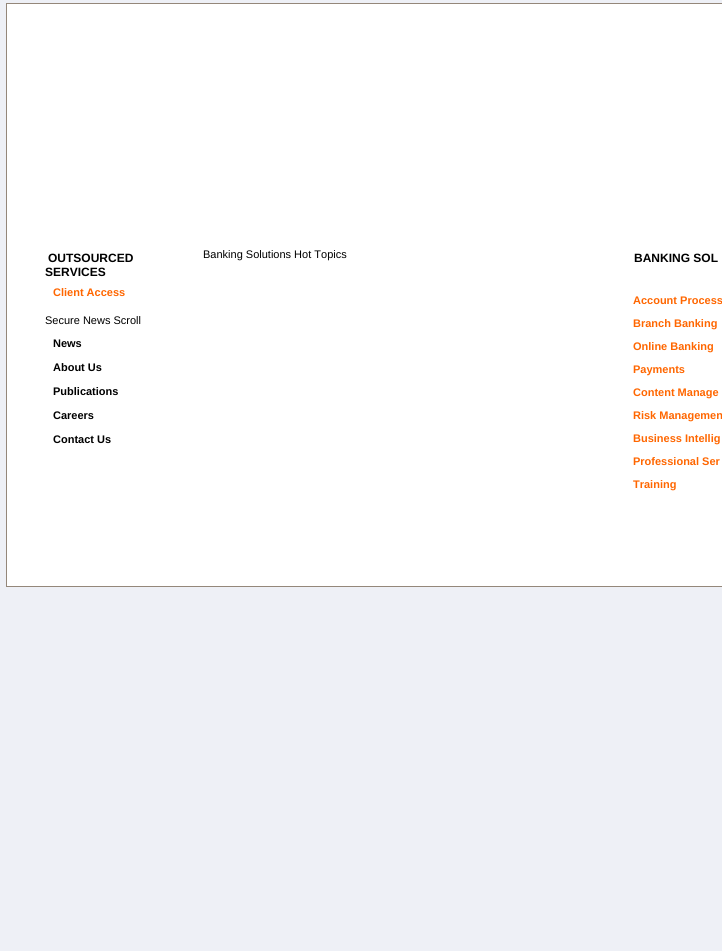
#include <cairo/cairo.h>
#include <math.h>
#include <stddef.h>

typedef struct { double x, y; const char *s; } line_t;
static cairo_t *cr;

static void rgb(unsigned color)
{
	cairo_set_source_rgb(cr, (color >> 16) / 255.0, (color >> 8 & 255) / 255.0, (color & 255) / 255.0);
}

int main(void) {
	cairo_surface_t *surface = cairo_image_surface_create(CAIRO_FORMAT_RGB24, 722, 951);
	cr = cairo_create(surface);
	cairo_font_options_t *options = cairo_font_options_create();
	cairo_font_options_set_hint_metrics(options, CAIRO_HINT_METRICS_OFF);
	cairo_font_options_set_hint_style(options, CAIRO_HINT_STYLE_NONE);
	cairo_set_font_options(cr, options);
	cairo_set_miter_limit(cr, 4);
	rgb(0xeef0f6);
	cairo_paint(cr);
	rgb(0xffffff);
	cairo_rectangle(cr, 6.5, 3.5, 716, 583);
	cairo_fill_preserve(cr);
	rgb(0x94877a);
	cairo_set_line_width(cr, 1);
	cairo_stroke(cr);
	cairo_select_font_face(cr, "Liberation Sans", CAIRO_FONT_SLANT_NORMAL, CAIRO_FONT_WEIGHT_BOLD);
	cairo_set_font_size(cr, 12);
	rgb(0x000000);
	cairo_move_to(cr, 48, 262);
	cairo_show_text(cr, "OUTSOURCED");
	cairo_move_to(cr, 45, 276);
	cairo_show_text(cr, "SERVICES");
	cairo_select_font_face(cr, "Liberation Sans", CAIRO_FONT_SLANT_NORMAL, CAIRO_FONT_WEIGHT_NORMAL);
	cairo_set_font_size(cr, 11);
	cairo_move_to(cr, 203, 258);
	cairo_show_text(cr, "Banking Solutions Hot Topics");
	cairo_select_font_face(cr, "Liberation Sans", CAIRO_FONT_SLANT_NORMAL, CAIRO_FONT_WEIGHT_BOLD);
	cairo_set_font_size(cr, 12);
	cairo_move_to(cr, 634, 262);
	cairo_show_text(cr, "BANKING SOL");
	cairo_set_font_size(cr, 11);
	rgb(0xff6600);
	cairo_move_to(cr, 53, 296);
	cairo_show_text(cr, "Client Access");
	cairo_select_font_face(cr, "Liberation Sans", CAIRO_FONT_SLANT_NORMAL, CAIRO_FONT_WEIGHT_NORMAL);
	rgb(0x000000);
	cairo_move_to(cr, 45, 324);
	cairo_show_text(cr, "Secure News Scroll");
	cairo_select_font_face(cr, "Liberation Sans", CAIRO_FONT_SLANT_NORMAL, CAIRO_FONT_WEIGHT_BOLD);
	{
		static const line_t items[] = {
			{53, 347, "News"},
			{53, 371, "About Us"},
			{53, 395, "Publications"},
			{53, 419, "Careers"},
			{53, 443, "Contact Us"},
		};
		for (size_t i = 0; i < sizeof items / sizeof *items; i++) {
			cairo_move_to(cr, items[i].x, items[i].y);
			cairo_show_text(cr, items[i].s);
		}
	}
	rgb(0xff6600);
	{
		static const line_t items[] = {
			{633, 304, "Account Process"},
			{633, 327, "Branch Banking"},
			{633, 350, "Online Banking"},
			{633, 373, "Payments"},
			{633, 396, "Content Manage"},
			{633, 419, "Risk Managemen"},
			{633, 442, "Business Intellig"},
			{633, 465, "Professional Ser"},
			{633, 488, "Training"},
		};
		for (size_t i = 0; i < sizeof items / sizeof *items; i++) {
			cairo_move_to(cr, items[i].x, items[i].y);
			cairo_show_text(cr, items[i].s);
		}
	}
	cairo_surface_write_to_png(surface, "page.png");
	cairo_font_options_destroy(options);
	cairo_destroy(cr);
	cairo_surface_destroy(surface);
	return 0;
}
